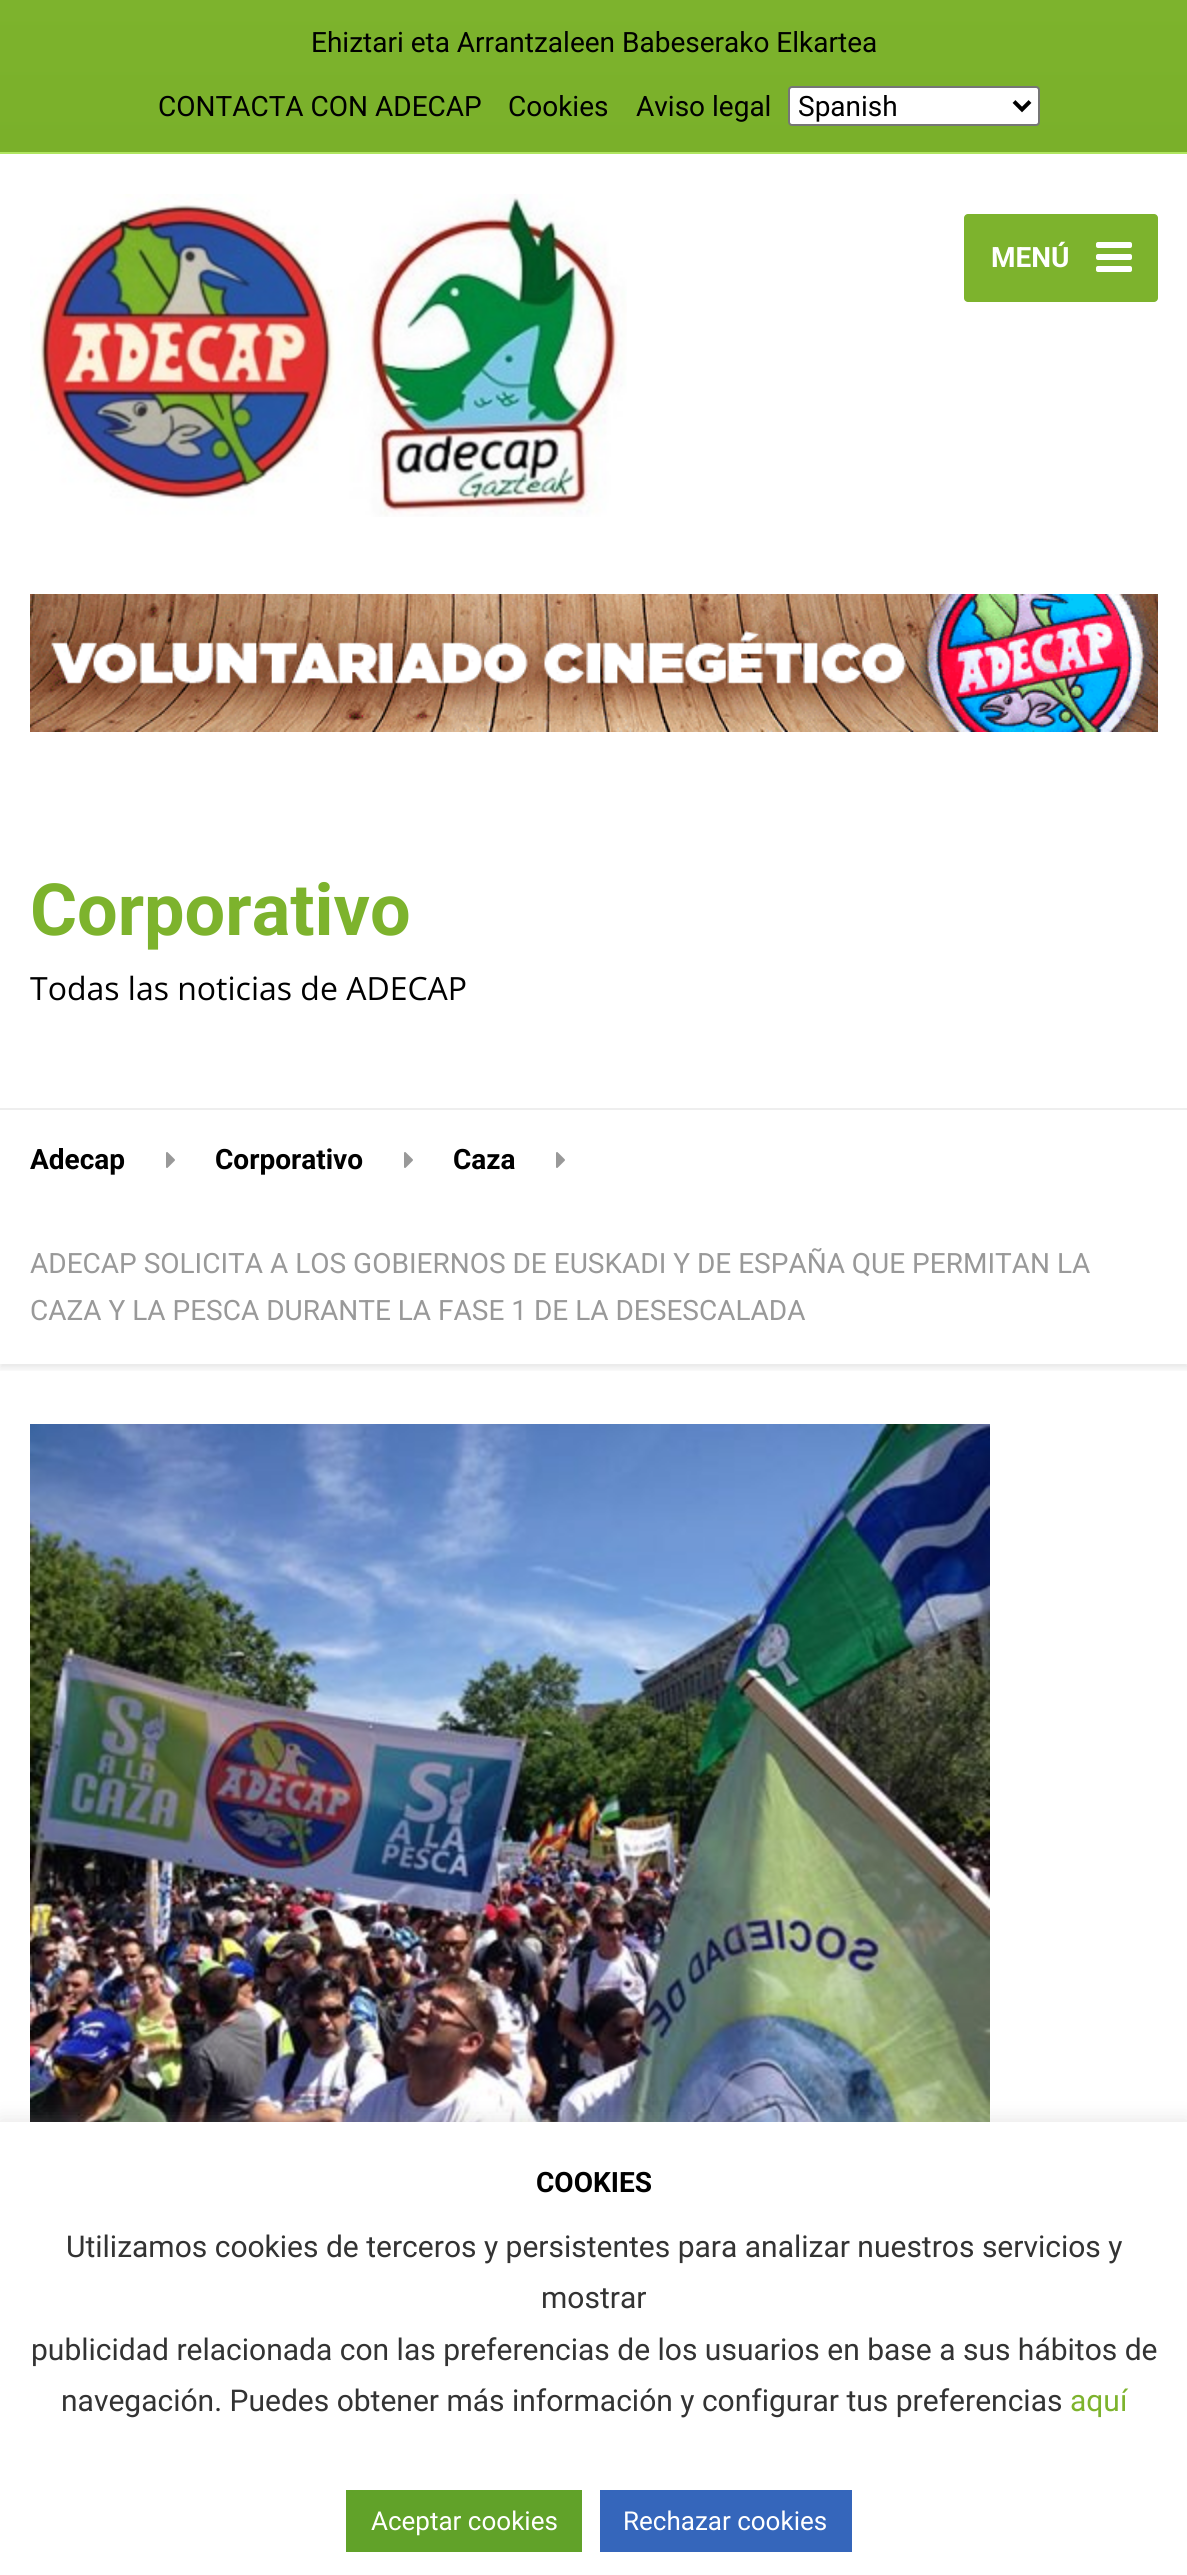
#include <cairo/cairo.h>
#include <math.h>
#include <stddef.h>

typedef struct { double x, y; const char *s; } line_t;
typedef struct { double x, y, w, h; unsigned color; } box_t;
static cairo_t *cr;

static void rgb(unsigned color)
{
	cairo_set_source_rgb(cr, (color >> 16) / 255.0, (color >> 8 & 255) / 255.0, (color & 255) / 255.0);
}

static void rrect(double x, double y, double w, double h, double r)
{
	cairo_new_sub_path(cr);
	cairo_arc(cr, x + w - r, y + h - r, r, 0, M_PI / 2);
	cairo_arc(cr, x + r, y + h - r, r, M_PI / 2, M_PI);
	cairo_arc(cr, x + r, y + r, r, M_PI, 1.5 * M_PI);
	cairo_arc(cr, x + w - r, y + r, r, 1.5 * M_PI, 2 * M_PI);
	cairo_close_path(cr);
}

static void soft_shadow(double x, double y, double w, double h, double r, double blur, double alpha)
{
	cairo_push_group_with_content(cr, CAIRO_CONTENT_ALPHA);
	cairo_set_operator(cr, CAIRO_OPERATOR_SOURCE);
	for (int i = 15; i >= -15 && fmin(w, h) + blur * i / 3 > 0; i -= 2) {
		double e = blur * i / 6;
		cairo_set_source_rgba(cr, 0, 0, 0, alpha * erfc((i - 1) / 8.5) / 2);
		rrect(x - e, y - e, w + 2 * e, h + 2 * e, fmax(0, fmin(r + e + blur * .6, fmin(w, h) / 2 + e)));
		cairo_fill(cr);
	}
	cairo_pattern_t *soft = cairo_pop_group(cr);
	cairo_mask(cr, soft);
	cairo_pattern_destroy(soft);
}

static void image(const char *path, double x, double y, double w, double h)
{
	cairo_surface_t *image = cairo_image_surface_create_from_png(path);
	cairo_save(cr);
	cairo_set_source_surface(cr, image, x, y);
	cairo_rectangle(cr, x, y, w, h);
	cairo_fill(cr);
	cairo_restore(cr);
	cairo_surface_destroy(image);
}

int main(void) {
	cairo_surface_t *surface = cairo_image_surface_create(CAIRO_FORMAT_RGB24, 1187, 2575);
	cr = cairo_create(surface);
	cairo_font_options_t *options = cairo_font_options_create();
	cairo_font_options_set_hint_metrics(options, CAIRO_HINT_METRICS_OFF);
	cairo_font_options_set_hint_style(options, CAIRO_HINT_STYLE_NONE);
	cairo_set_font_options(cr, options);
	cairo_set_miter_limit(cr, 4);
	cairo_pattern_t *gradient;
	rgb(0xffffff);
	cairo_paint(cr);
	gradient = cairo_pattern_create_linear(594, 0, 594, 152);
	cairo_pattern_add_color_stop_rgba(gradient, 0, 0.49, 0.702, 0.176, 1);
	cairo_pattern_add_color_stop_rgba(gradient, 1, 0.478, 0.69, 0.165, 1);
	cairo_set_source(cr, gradient);
	cairo_pattern_destroy(gradient);
	cairo_rectangle(cr, 0, 0, 1187, 152);
	cairo_fill(cr);
	rgb(0xb0e660);
	cairo_rectangle(cr, 0, 152, 1187, 2);
	cairo_fill(cr);
	rgb(0xffffff);
	rrect(789, 87, 250, 38, 3);
	cairo_fill_preserve(cr);
	rgb(0x767676);
	cairo_stroke(cr);
	cairo_new_path(cr);
	cairo_move_to(cr, 1014, 101.5);
	cairo_line_to(cr, 1022, 109.5);
	cairo_line_to(cr, 1030, 101.5);
	rgb(0x000000);
	cairo_set_line_width(cr, 4);
	cairo_stroke(cr);
	image("img/1.png", 30, 194, 597, 323);
	rgb(0x7db32d);
	rrect(964, 214, 194, 88, 4);
	cairo_fill(cr);
	rgb(0xffffff);
	rrect(1096, 242, 36, 6, 2);
	cairo_fill(cr);
	rrect(1096, 254, 36, 6, 2);
	cairo_fill(cr);
	rrect(1096, 266, 36, 6, 2);
	cairo_fill(cr);
	image("img/2.png", 30, 594, 1128, 138);
	rgb(0xeeeeee);
	cairo_rectangle(cr, 0, 1108, 1187, 2);
	cairo_fill(cr);
	cairo_save(cr);
	cairo_rectangle(cr, 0, 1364, 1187, 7);
	cairo_clip(cr);
	rgb(0x000000);
	soft_shadow(0, 1114, 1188, 254, 0, 4, 0.1);
	cairo_restore(cr);
	image("img/3.png", 166, 1152, 9, 16);
	image("img/3.png", 404, 1152, 9, 16);
	image("img/3.png", 556, 1152, 9, 16);
	image("img/4.png", 30, 1424, 960, 698);
	rgb(0xacabab);
	soft_shadow(0, 2120, 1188, 454, 0, 10, 0.3);
	{
		static const box_t items[] = {
			{0, 2122, 1187, 453, 0xffffff},
			{346, 2490, 236, 62, 0x61a229},
			{600, 2490, 252, 62, 0x3566bb},
		};
		for (size_t i = 0; i < sizeof items / sizeof *items; i++) {
			rgb(items[i].color);
			cairo_rectangle(cr, items[i].x, items[i].y, items[i].w, items[i].h);
			cairo_fill(cr);
		}
	}
	cairo_select_font_face(cr, "Roboto", CAIRO_FONT_SLANT_NORMAL, CAIRO_FONT_WEIGHT_NORMAL);
	cairo_set_font_size(cr, 28);
	rgb(0x000000);
	{
		static const line_t items[] = {
			{311, 52, "Ehiztari eta Arrantzaleen Babeserako Elkartea"},
			{158, 116, "CONTACTA CON ADECAP"},
			{508, 116, "Cookies"},
			{636, 116, "Aviso legal"},
			{798, 116, "Spanish"},
		};
		for (size_t i = 0; i < sizeof items / sizeof *items; i++) {
			cairo_move_to(cr, items[i].x, items[i].y);
			cairo_show_text(cr, items[i].s);
		}
	}
	cairo_select_font_face(cr, "Roboto", CAIRO_FONT_SLANT_NORMAL, CAIRO_FONT_WEIGHT_BOLD);
	rgb(0xffffff);
	cairo_move_to(cr, 991, 267);
	cairo_show_text(cr, "MENÚ");
	cairo_set_font_size(cr, 72);
	rgb(0x7db32d);
	cairo_move_to(cr, 30, 935);
	cairo_show_text(cr, "Corporativo");
	cairo_select_font_face(cr, "Open Sans", CAIRO_FONT_SLANT_NORMAL, CAIRO_FONT_WEIGHT_NORMAL);
	cairo_set_font_size(cr, 32);
	rgb(0x000000);
	cairo_move_to(cr, 30, 1000);
	cairo_show_text(cr, "Todas las noticias de ADECAP");
	cairo_select_font_face(cr, "Roboto", CAIRO_FONT_SLANT_NORMAL, CAIRO_FONT_WEIGHT_BOLD);
	cairo_set_font_size(cr, 28);
	{
		static const line_t items[] = {
			{30, 1169, "Adecap"},
			{215, 1169, "Corporativo"},
			{453, 1169, "Caza"},
		};
		for (size_t i = 0; i < sizeof items / sizeof *items; i++) {
			cairo_move_to(cr, items[i].x, items[i].y);
			cairo_show_text(cr, items[i].s);
		}
	}
	cairo_select_font_face(cr, "Roboto", CAIRO_FONT_SLANT_NORMAL, CAIRO_FONT_WEIGHT_NORMAL);
	rgb(0x999999);
	cairo_move_to(cr, 30, 1273);
	cairo_show_text(cr, "ADECAP SOLICITA A LOS GOBIERNOS DE EUSKADI Y DE ESPAÑA QUE PERMITAN LA");
	cairo_move_to(cr, 30, 1320);
	cairo_show_text(cr, "CAZA Y LA PESCA DURANTE LA FASE 1 DE LA DESESCALADA");
	cairo_select_font_face(cr, "Roboto", CAIRO_FONT_SLANT_NORMAL, CAIRO_FONT_WEIGHT_BOLD);
	rgb(0x000000);
	cairo_move_to(cr, 536, 2192);
	cairo_show_text(cr, "COOKIES");
	cairo_select_font_face(cr, "Roboto", CAIRO_FONT_SLANT_NORMAL, CAIRO_FONT_WEIGHT_NORMAL);
	cairo_set_font_size(cr, 30);
	rgb(0x333333);
	{
		static const line_t items[] = {
			{66, 2257, "Utilizamos cookies de terceros y persistentes para analizar nuestros servicios y"},
			{541, 2308, "mostrar"},
			{31, 2360, "publicidad relacionada con las preferencias de los usuarios en base a sus hábitos de"},
			{61, 2411, "navegación. Puedes obtener más información y configurar tus preferencias"},
		};
		for (size_t i = 0; i < sizeof items / sizeof *items; i++) {
			cairo_move_to(cr, items[i].x, items[i].y);
			cairo_show_text(cr, items[i].s);
		}
	}
	rgb(0x7db32d);
	cairo_move_to(cr, 1070, 2411);
	cairo_show_text(cr, "aquí");
	cairo_set_font_size(cr, 26);
	rgb(0xffffff);
	cairo_move_to(cr, 371, 2530);
	cairo_show_text(cr, "Aceptar cookies");
	cairo_move_to(cr, 623, 2530);
	cairo_show_text(cr, "Rechazar cookies");
	cairo_surface_write_to_png(surface, "page.png");
	cairo_font_options_destroy(options);
	cairo_destroy(cr);
	cairo_surface_destroy(surface);
	return 0;
}
